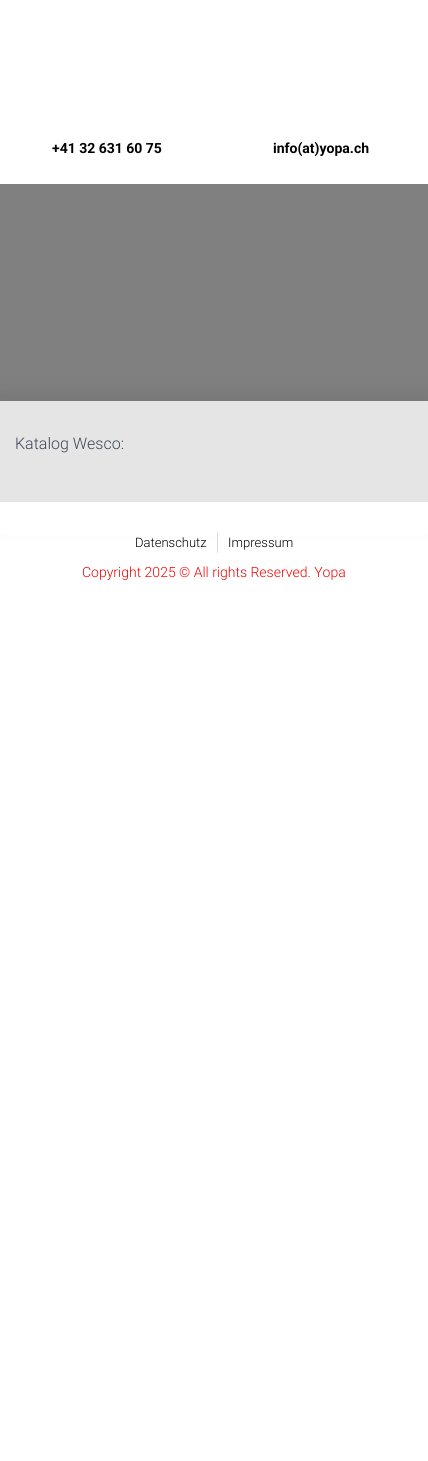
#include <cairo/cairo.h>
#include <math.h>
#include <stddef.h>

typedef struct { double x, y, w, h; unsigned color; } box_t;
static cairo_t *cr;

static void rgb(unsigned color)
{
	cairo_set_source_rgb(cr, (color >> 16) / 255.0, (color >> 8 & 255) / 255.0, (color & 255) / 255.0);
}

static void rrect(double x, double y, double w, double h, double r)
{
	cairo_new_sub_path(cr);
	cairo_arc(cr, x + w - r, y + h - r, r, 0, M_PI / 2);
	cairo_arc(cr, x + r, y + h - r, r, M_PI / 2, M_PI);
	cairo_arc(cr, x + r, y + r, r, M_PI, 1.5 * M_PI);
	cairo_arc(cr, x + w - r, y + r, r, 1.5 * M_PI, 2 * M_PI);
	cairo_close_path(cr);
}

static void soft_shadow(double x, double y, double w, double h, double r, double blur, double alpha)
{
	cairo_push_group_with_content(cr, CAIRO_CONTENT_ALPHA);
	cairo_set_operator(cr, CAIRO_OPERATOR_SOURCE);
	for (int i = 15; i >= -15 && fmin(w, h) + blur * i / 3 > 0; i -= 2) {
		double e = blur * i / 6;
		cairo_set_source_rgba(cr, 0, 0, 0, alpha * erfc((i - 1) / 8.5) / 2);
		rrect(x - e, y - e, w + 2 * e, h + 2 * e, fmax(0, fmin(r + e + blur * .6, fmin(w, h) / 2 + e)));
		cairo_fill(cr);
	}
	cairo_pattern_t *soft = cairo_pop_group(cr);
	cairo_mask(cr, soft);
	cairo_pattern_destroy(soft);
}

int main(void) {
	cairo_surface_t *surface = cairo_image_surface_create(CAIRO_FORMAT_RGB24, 428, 1461);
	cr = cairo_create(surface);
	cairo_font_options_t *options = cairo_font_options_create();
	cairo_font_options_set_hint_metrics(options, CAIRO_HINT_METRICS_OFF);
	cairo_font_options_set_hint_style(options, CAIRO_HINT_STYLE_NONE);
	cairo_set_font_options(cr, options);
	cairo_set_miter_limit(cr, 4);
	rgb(0xffffff);
	cairo_paint(cr);
	rgb(0x808080);
	cairo_rectangle(cr, 0, 184, 428, 217);
	cairo_fill(cr);
	rgb(0x000000);
	soft_shadow(-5, 402, 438, 111, 0, 15, 0.12);
	{
		static const box_t items[] = {
			{0, 401, 428, 101, 0xe5e5e5},
			{0, 502, 428, 32, 0xffffff},
			{217, 532, 1, 21, 0xdddddd},
		};
		for (size_t i = 0; i < sizeof items / sizeof *items; i++) {
			rgb(items[i].color);
			cairo_rectangle(cr, items[i].x, items[i].y, items[i].w, items[i].h);
			cairo_fill(cr);
		}
	}
	cairo_select_font_face(cr, "Roboto", CAIRO_FONT_SLANT_NORMAL, CAIRO_FONT_WEIGHT_BOLD);
	cairo_set_font_size(cr, 14);
	rgb(0x000000);
	cairo_move_to(cr, 52, 153);
	cairo_show_text(cr, "+41 32 631 60 75");
	cairo_move_to(cr, 273, 153);
	cairo_show_text(cr, "info(at)yopa.ch");
	cairo_select_font_face(cr, "Roboto Light", CAIRO_FONT_SLANT_NORMAL, CAIRO_FONT_WEIGHT_NORMAL);
	cairo_set_font_size(cr, 16);
	rgb(0x3c4858);
	cairo_move_to(cr, 15, 449);
	cairo_show_text(cr, "Katalog Wesco:");
	cairo_set_font_size(cr, 13);
	rgb(0x000000);
	cairo_move_to(cr, 135, 547);
	cairo_show_text(cr, "Datenschutz");
	cairo_move_to(cr, 228, 547);
	cairo_show_text(cr, "Impressum");
	cairo_set_font_size(cr, 14);
	rgb(0xee0404);
	cairo_move_to(cr, 82, 577);
	cairo_show_text(cr, "Copyright 2025 © All rights Reserved. Yopa");
	cairo_surface_write_to_png(surface, "page.png");
	cairo_font_options_destroy(options);
	cairo_destroy(cr);
	cairo_surface_destroy(surface);
	return 0;
}
